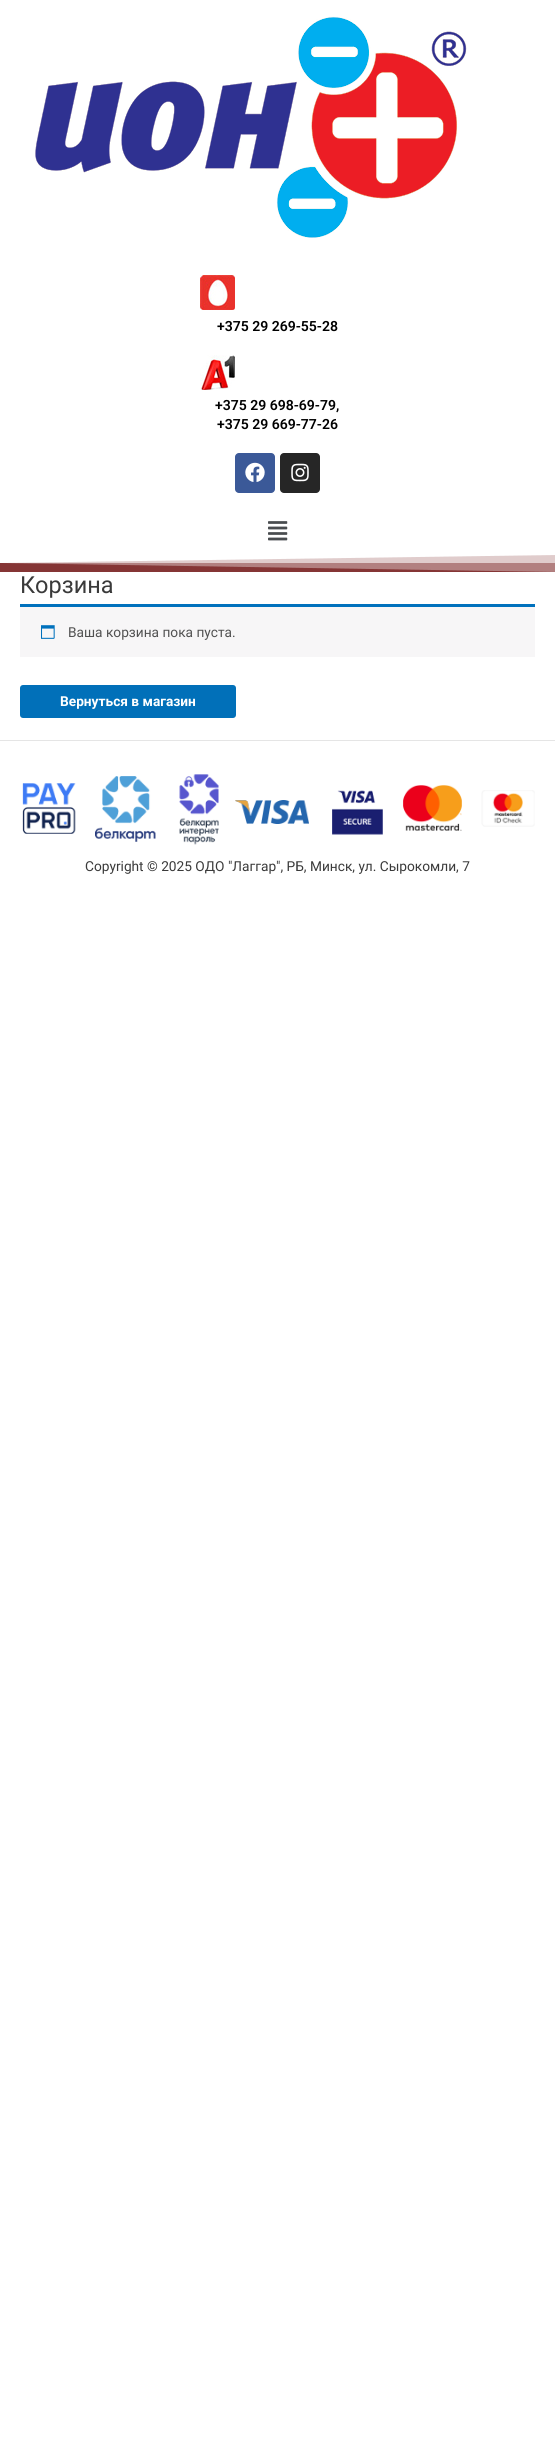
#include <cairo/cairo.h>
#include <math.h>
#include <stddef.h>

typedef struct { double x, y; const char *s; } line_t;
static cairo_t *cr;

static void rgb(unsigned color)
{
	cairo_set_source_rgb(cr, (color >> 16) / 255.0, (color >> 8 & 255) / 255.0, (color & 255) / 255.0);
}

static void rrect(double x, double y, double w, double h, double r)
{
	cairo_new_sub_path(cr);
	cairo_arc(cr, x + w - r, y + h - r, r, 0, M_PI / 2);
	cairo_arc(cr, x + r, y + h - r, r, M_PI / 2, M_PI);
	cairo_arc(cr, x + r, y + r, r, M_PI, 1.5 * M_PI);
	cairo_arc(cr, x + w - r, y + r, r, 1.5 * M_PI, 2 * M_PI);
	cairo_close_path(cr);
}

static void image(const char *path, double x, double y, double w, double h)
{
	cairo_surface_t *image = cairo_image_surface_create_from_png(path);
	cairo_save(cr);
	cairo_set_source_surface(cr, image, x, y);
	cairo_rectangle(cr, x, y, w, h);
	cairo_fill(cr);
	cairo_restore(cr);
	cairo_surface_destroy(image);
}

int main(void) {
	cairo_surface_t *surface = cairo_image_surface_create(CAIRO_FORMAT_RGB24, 555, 2456);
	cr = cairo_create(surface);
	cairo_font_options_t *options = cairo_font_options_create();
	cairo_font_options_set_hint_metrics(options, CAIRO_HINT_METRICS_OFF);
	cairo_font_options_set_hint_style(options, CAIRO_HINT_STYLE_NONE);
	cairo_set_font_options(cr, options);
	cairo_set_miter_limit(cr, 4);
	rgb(0xffffff);
	cairo_paint(cr);
	rgb(0xc29a9a);
	cairo_rectangle(cr, 3, 563, 552, 9);
	cairo_fill(cr);
	image("img/1.png", 35, 16, 432, 222);
	image("img/2.png", 200, 275, 35, 35);
	image("img/3.png", 200, 355, 35, 35);
	rgb(0x3b5998);
	rrect(235, 453, 40, 40, 4);
	cairo_fill(cr);
	image("img/4.png", 245, 462, 20, 20);
	rgb(0x262626);
	rrect(280, 453, 40, 40, 4);
	cairo_fill(cr);
	image("img/5.png", 291, 463, 18, 19);
	image("img/6.png", 268, 521, 20, 20);
	rgb(0x853535);
	cairo_new_path(cr);
	cairo_move_to(cr, 555, 572);
	cairo_line_to(cr, -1, 572);
	cairo_line_to(cr, -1, 563);
	cairo_close_path(cr);
	cairo_fill(cr);
	cairo_set_source_rgba(cr, 0.522, 0.208, 0.208, 0.25);
	cairo_new_path(cr);
	cairo_move_to(cr, -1, 572);
	cairo_line_to(cr, 555, 572);
	cairo_line_to(cr, 555, 555);
	cairo_line_to(cr, -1, 563);
	cairo_close_path(cr);
	cairo_fill(cr);
	rgb(0xf7f6f7);
	cairo_rectangle(cr, 20, 607, 515, 50);
	cairo_fill(cr);
	rgb(0x0071bd);
	cairo_rectangle(cr, 20, 604, 515, 3);
	cairo_fill(cr);
	image("img/7.png", 41, 625, 14, 14);
	rgb(0x0170b9);
	rrect(20, 685, 216, 33, 3);
	cairo_fill(cr);
	rgb(0xe5e5e5);
	cairo_rectangle(cr, 0, 740, 555, 1);
	cairo_fill(cr);
	image("img/8.png", 22, 774, 513, 71);
	cairo_select_font_face(cr, "Roboto SemiBold", CAIRO_FONT_SLANT_NORMAL, CAIRO_FONT_WEIGHT_NORMAL);
	cairo_set_font_size(cr, 14);
	rgb(0x000000);
	{
		static const line_t items[] = {
			{217, 331, "+375 29 269-55-28"},
			{215, 410, "+375 29 698-69-79,"},
			{217, 429, "+375 29 669-77-26"},
		};
		for (size_t i = 0; i < sizeof items / sizeof *items; i++) {
			cairo_move_to(cr, items[i].x, items[i].y);
			cairo_show_text(cr, items[i].s);
		}
	}
	cairo_select_font_face(cr, "Roboto", CAIRO_FONT_SLANT_NORMAL, CAIRO_FONT_WEIGHT_NORMAL);
	cairo_set_font_size(cr, 23.5);
	rgb(0x3a3a3a);
	cairo_move_to(cr, 20, 593);
	cairo_show_text(cr, "Корзина");
	cairo_set_font_size(cr, 13.7);
	rgb(0x515151);
	cairo_move_to(cr, 68, 637);
	cairo_show_text(cr, "Ваша корзина пока пуста.");
	cairo_select_font_face(cr, "Roboto", CAIRO_FONT_SLANT_NORMAL, CAIRO_FONT_WEIGHT_BOLD);
	rgb(0xffffff);
	cairo_move_to(cr, 60, 706);
	cairo_show_text(cr, "Вернуться в магазин");
	cairo_select_font_face(cr, "Roboto", CAIRO_FONT_SLANT_NORMAL, CAIRO_FONT_WEIGHT_NORMAL);
	rgb(0x3a3a3a);
	cairo_move_to(cr, 85, 871);
	cairo_show_text(cr, "Copyright © 2025 ОДО \"Лаггар\", РБ, Минск, ул. Сырокомли, 7");
	cairo_surface_write_to_png(surface, "page.png");
	cairo_font_options_destroy(options);
	cairo_destroy(cr);
	cairo_surface_destroy(surface);
	return 0;
}
